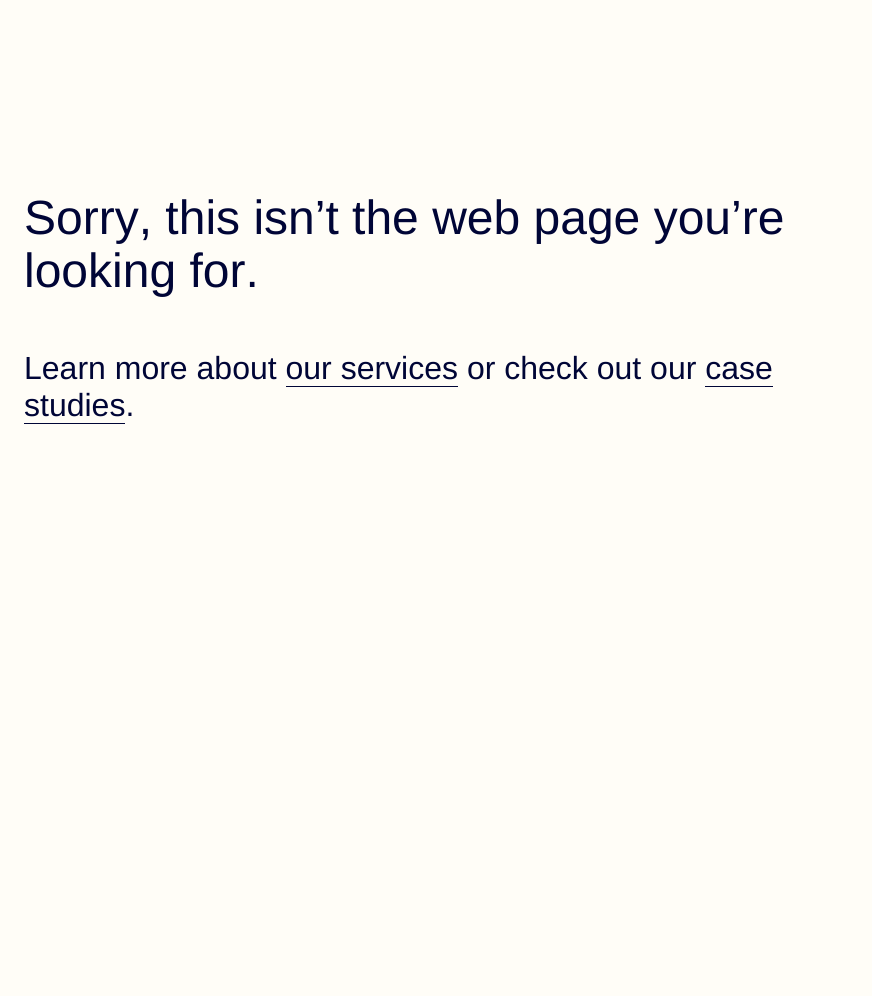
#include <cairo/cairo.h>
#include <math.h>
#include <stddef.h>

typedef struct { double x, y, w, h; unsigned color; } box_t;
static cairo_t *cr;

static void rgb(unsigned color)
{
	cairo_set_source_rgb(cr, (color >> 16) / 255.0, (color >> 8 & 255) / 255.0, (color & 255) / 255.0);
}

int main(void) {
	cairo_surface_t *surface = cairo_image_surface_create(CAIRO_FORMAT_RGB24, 872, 996);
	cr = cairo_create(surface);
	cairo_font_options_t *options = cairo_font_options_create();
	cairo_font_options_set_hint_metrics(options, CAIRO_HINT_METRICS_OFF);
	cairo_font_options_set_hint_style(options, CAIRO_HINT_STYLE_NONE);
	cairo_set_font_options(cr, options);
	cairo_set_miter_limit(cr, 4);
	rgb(0xfffdf7);
	cairo_paint(cr);
	{
		static const box_t items[] = {
			{286, 386, 172, 1, 0x000536},
			{705, 386, 68, 1, 0x000536},
			{24, 423, 101, 1, 0x000536},
		};
		for (size_t i = 0; i < sizeof items / sizeof *items; i++) {
			rgb(items[i].color);
			cairo_rectangle(cr, items[i].x, items[i].y, items[i].w, items[i].h);
			cairo_fill(cr);
		}
	}
	cairo_select_font_face(cr, "Liberation Sans", CAIRO_FONT_SLANT_NORMAL, CAIRO_FONT_WEIGHT_NORMAL);
	cairo_set_font_size(cr, 48);
	cairo_move_to(cr, 24, 234);
	cairo_show_text(cr, "Sorry, this isn’t the web page you’re");
	cairo_move_to(cr, 24, 287);
	cairo_show_text(cr, "looking for.");
	cairo_set_font_size(cr, 32);
	cairo_move_to(cr, 24, 379);
	cairo_show_text(cr, "Learn more about our services or check out our case");
	cairo_move_to(cr, 24, 416);
	cairo_show_text(cr, "studies.");
	cairo_surface_write_to_png(surface, "page.png");
	cairo_font_options_destroy(options);
	cairo_destroy(cr);
	cairo_surface_destroy(surface);
	return 0;
}
